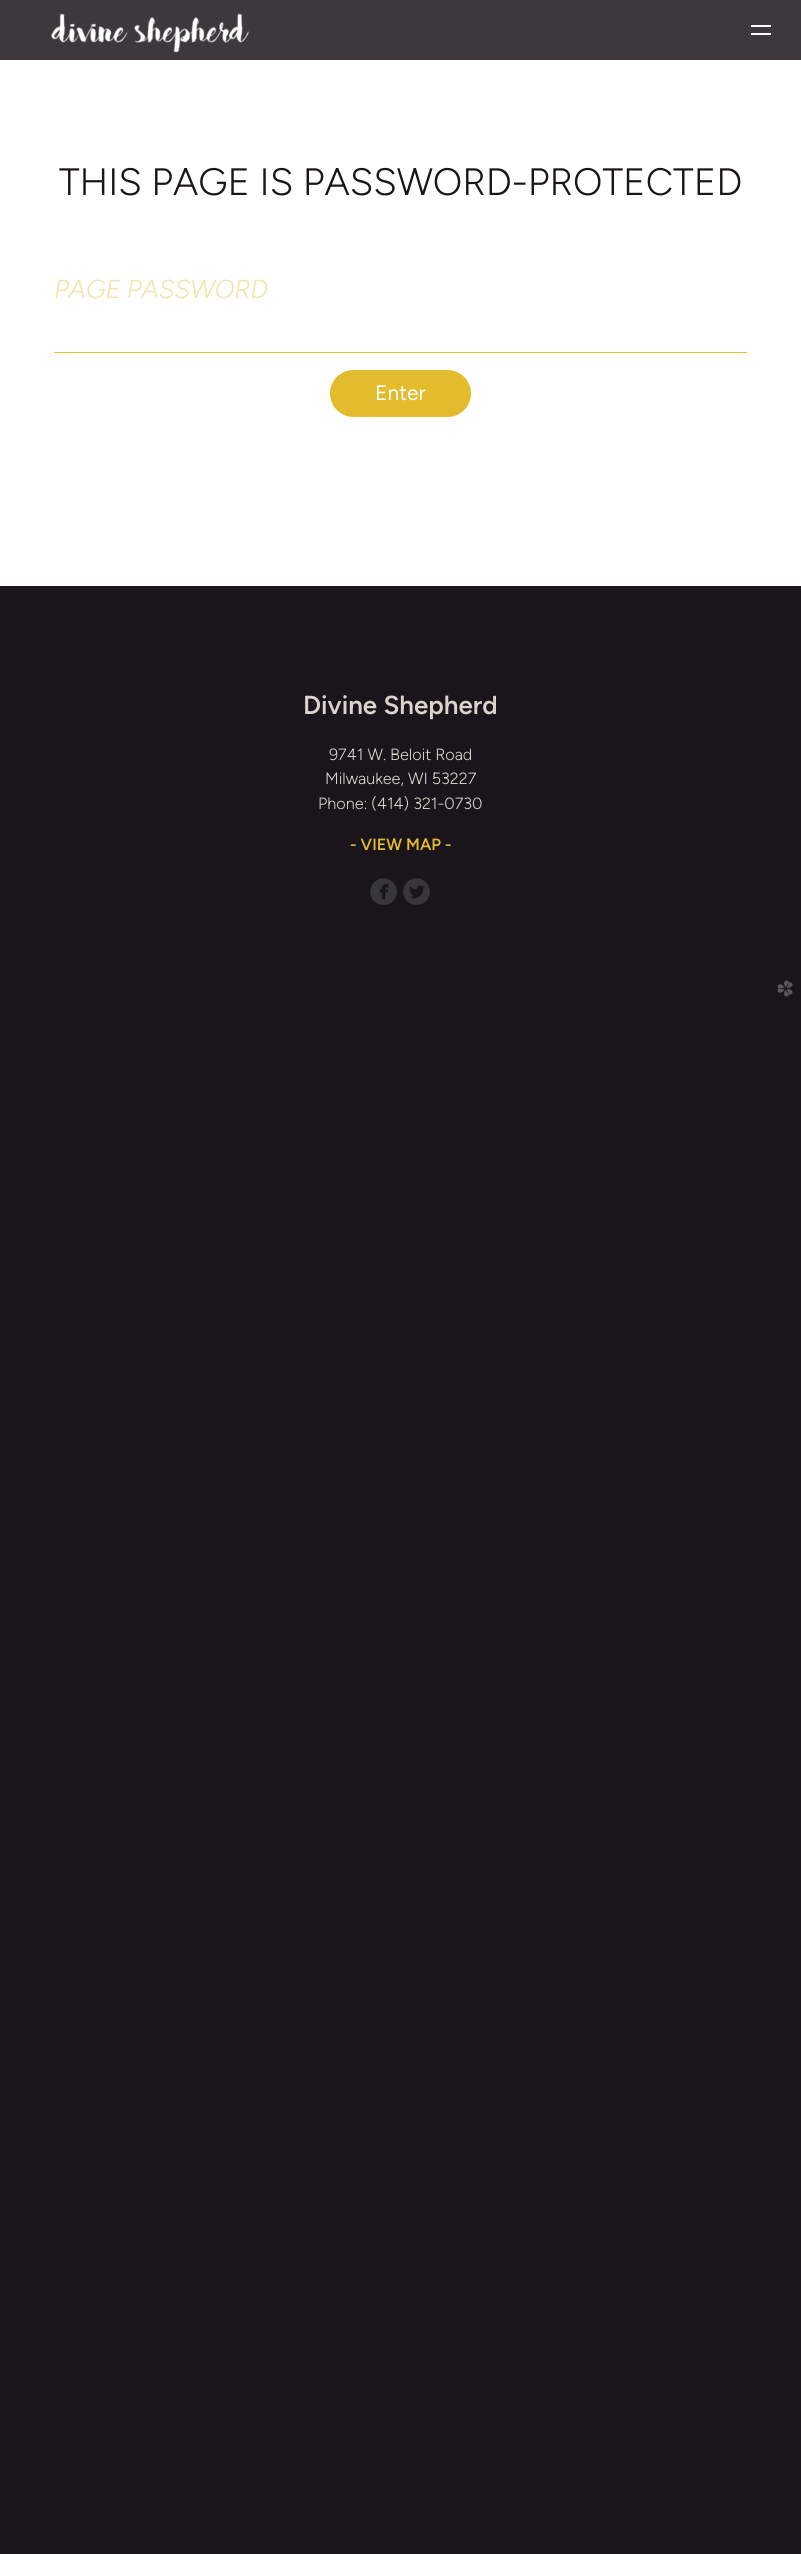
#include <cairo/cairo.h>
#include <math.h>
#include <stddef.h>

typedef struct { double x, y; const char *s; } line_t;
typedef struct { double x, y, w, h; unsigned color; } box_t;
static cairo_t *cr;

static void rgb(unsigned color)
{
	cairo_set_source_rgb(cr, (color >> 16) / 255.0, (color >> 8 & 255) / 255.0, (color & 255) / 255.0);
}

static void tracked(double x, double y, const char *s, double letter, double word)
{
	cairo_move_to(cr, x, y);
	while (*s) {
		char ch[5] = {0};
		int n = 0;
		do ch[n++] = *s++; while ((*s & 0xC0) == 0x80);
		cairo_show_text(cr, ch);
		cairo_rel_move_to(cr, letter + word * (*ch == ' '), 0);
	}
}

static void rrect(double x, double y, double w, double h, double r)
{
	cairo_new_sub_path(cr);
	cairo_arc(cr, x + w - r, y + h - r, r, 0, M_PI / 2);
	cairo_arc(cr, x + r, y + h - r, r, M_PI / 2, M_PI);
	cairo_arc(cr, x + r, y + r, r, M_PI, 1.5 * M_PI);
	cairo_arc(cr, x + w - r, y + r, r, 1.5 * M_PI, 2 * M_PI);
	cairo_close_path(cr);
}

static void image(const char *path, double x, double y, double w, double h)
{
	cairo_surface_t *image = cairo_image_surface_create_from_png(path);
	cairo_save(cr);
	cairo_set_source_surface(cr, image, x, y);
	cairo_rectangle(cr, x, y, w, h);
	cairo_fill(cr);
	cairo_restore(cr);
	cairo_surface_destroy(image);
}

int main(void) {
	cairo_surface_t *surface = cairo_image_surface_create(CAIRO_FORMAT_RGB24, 801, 2554);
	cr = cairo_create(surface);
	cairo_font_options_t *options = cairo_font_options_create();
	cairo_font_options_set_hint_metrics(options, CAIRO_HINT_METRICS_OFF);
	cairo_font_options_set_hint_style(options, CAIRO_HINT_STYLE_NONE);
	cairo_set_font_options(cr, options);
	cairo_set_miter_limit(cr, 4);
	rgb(0x1a151a);
	cairo_paint(cr);
	{
		static const box_t items[] = {
			{0, 0, 801, 60, 0x3c383c},
			{751, 25, 20, 2, 0xffffff},
			{751, 33, 20, 2, 0xffffff},
		};
		for (size_t i = 0; i < sizeof items / sizeof *items; i++) {
			rgb(items[i].color);
			cairo_rectangle(cr, items[i].x, items[i].y, items[i].w, items[i].h);
			cairo_fill(cr);
		}
	}
	image("img/1.png", 51, 13, 198, 39);
	cairo_rectangle(cr, 0, 60, 801, 526);
	cairo_fill(cr);
	rgb(0xe3bc2d);
	cairo_rectangle(cr, 54, 352, 693, 1);
	cairo_fill(cr);
	rrect(330, 370, 141, 47, 23.5);
	cairo_fill(cr);
	image("img/2.png", 370, 878, 27, 27);
	image("img/3.png", 403, 878, 27, 27);
	image("img/4.png", 777, 980, 16, 17);
	cairo_select_font_face(cr, "Figtree Light", CAIRO_FONT_SLANT_NORMAL, CAIRO_FONT_WEIGHT_NORMAL);
	cairo_set_font_size(cr, 38.1);
	rgb(0x1a151a);
	cairo_move_to(cr, 59, 195);
	cairo_show_text(cr, "THIS PAGE IS PASSWORD-PROTECTED");
	cairo_select_font_face(cr, "Figtree Light", CAIRO_FONT_SLANT_ITALIC, CAIRO_FONT_WEIGHT_NORMAL);
	cairo_set_font_size(cr, 26);
	rgb(0xf4e4ab);
	tracked(54, 298, "PAGE PASSWORD", -0.25, 0);
	cairo_select_font_face(cr, "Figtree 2 Light", CAIRO_FONT_SLANT_NORMAL, CAIRO_FONT_WEIGHT_NORMAL);
	cairo_set_font_size(cr, 21);
	rgb(0xffffff);
	cairo_move_to(cr, 375, 400);
	cairo_show_text(cr, "Enter");
	cairo_select_font_face(cr, "Figtree SemiBold", CAIRO_FONT_SLANT_NORMAL, CAIRO_FONT_WEIGHT_NORMAL);
	cairo_set_font_size(cr, 26);
	rgb(0xd9d5ce);
	cairo_move_to(cr, 303, 714);
	cairo_show_text(cr, "Divine Shepherd");
	cairo_select_font_face(cr, "Figtree Light", CAIRO_FONT_SLANT_NORMAL, CAIRO_FONT_WEIGHT_NORMAL);
	cairo_set_font_size(cr, 16.25);
	{
		static const line_t items[] = {
			{329, 760, "9741 W. Beloit Road"},
			{325, 784, "Milwaukee, WI 53227"},
			{318, 809, "Phone: (414) 321-0730"},
		};
		for (size_t i = 0; i < sizeof items / sizeof *items; i++) {
			cairo_move_to(cr, items[i].x, items[i].y);
			cairo_show_text(cr, items[i].s);
		}
	}
	cairo_select_font_face(cr, "Figtree SemiBold", CAIRO_FONT_SLANT_NORMAL, CAIRO_FONT_WEIGHT_NORMAL);
	rgb(0xe3bc2d);
	cairo_move_to(cr, 350, 850);
	cairo_show_text(cr, "- VIEW MAP -");
	cairo_surface_write_to_png(surface, "page.png");
	cairo_font_options_destroy(options);
	cairo_destroy(cr);
	cairo_surface_destroy(surface);
	return 0;
}
